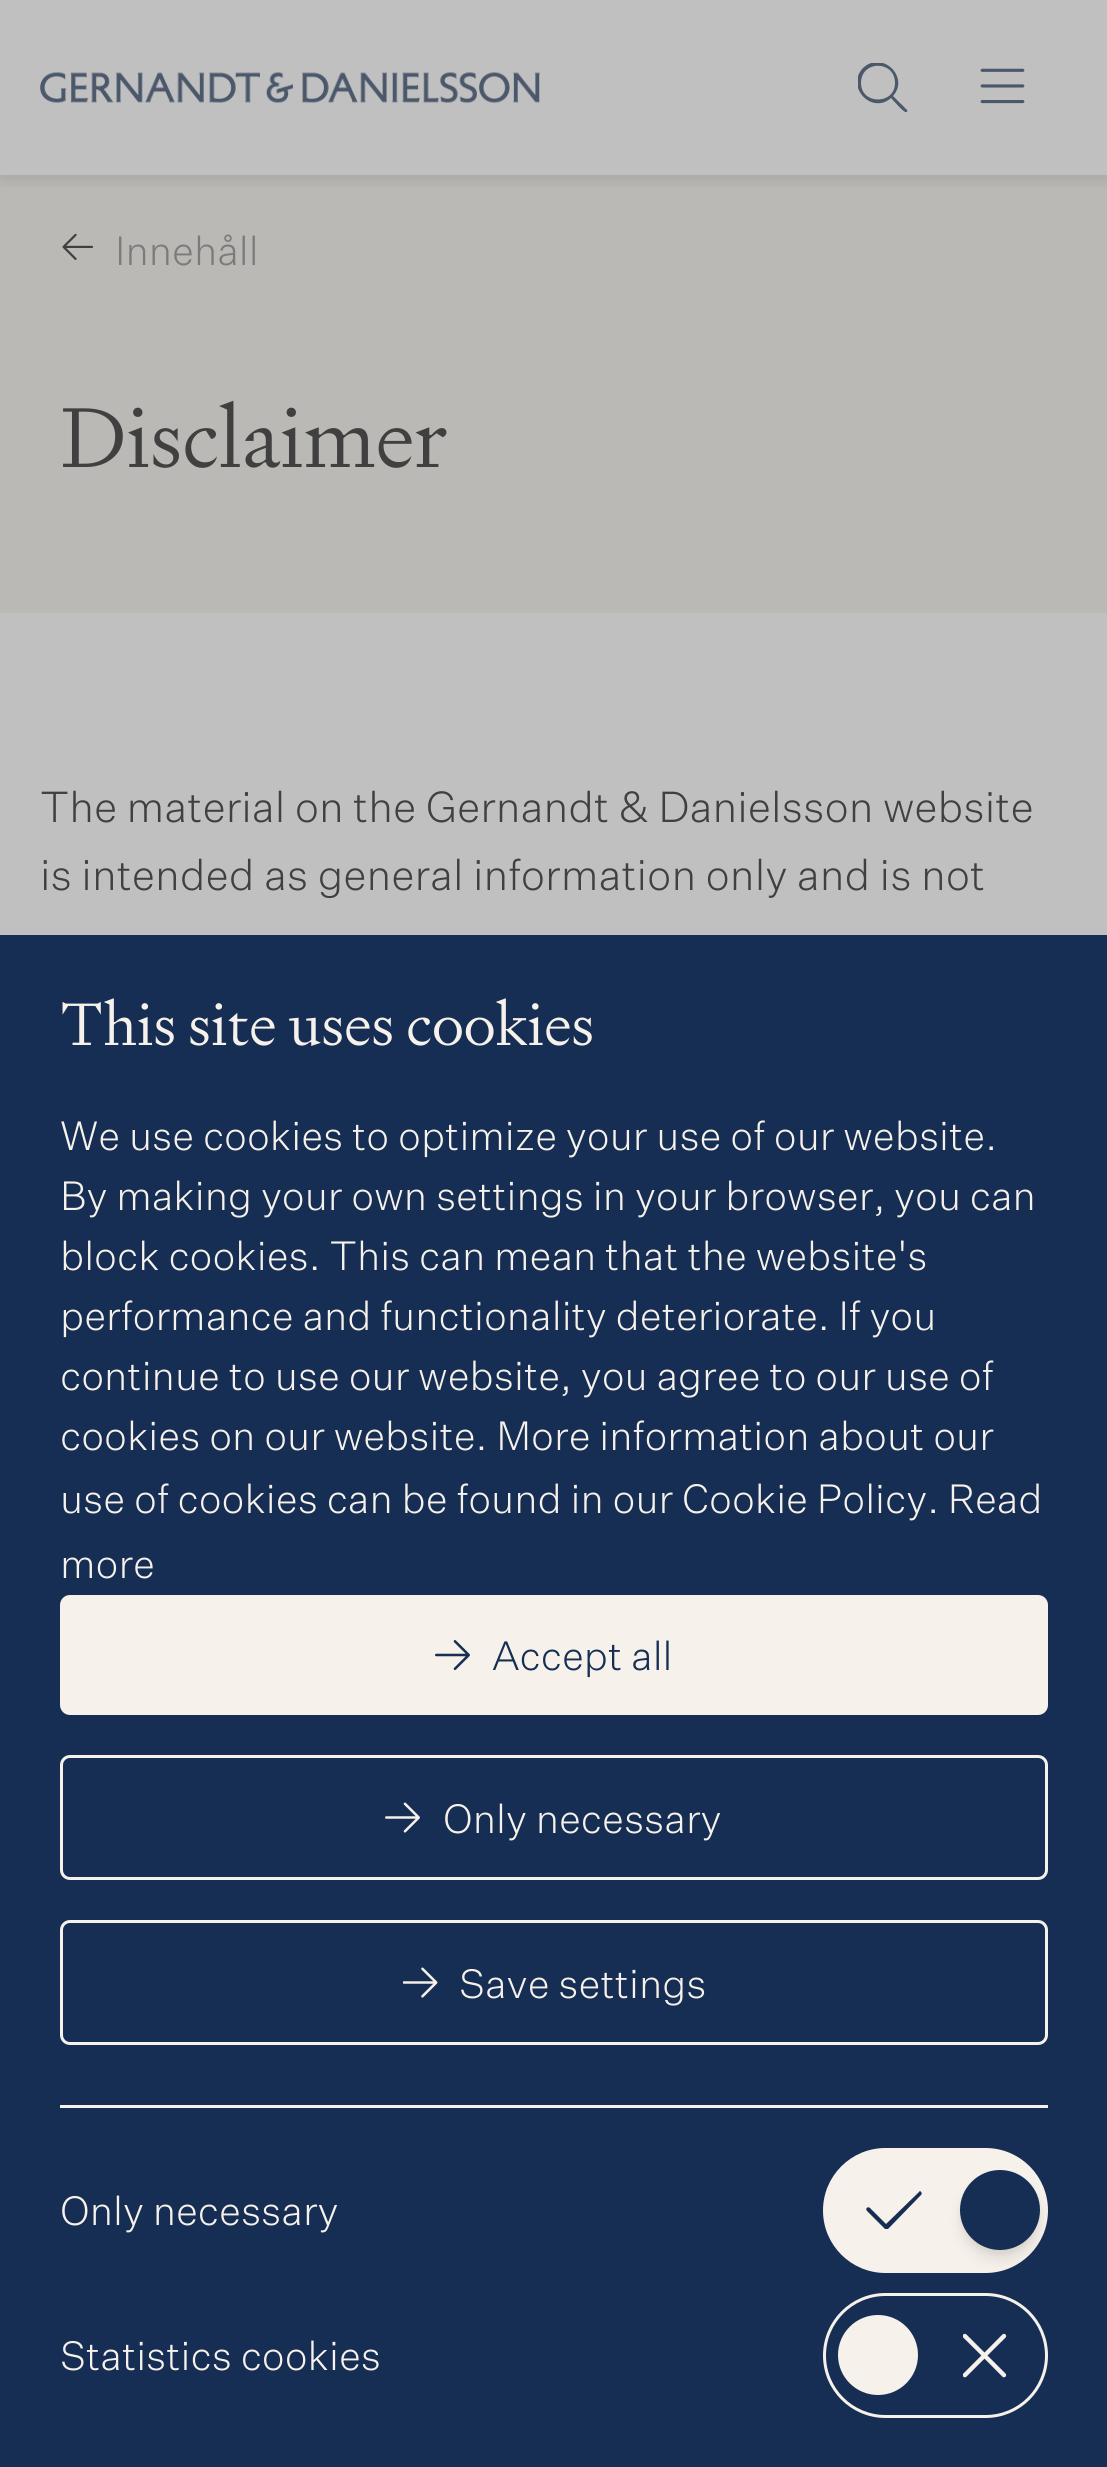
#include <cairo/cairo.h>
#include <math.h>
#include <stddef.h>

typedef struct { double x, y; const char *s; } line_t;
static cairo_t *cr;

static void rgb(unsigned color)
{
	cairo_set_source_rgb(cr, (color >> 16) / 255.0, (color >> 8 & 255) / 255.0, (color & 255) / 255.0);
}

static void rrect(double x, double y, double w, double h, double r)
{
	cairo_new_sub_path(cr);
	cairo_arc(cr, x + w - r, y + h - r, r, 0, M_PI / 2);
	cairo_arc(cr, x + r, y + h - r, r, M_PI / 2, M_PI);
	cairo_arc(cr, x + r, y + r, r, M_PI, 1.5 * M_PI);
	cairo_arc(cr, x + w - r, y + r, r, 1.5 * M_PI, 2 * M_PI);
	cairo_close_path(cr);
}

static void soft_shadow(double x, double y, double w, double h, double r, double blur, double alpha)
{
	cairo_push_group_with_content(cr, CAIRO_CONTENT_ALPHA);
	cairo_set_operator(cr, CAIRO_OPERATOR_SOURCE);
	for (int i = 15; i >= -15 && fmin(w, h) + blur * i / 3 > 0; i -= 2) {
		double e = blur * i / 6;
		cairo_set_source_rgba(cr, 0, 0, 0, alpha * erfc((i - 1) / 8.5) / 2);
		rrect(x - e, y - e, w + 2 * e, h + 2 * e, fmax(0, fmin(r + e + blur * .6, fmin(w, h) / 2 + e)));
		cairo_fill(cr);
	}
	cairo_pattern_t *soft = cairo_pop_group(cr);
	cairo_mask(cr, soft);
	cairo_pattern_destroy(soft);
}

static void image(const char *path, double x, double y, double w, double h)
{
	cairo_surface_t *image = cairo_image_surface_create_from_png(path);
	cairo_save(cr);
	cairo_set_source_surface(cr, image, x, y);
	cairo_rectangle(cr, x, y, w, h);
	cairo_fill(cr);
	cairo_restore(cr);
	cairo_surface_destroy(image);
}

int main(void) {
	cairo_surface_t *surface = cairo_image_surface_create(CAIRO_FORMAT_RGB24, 1107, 2467);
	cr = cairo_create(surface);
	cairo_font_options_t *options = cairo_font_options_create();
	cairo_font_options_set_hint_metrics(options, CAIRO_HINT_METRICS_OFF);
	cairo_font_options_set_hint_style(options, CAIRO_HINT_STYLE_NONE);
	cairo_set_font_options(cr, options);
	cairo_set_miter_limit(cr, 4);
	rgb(0xc0c0c0);
	cairo_paint(cr);
	rgb(0xbbb9b5);
	cairo_rectangle(cr, 0, 175, 1107, 438);
	cairo_fill(cr);
	cairo_save(cr);
	cairo_rectangle(cr, 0, 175, 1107, 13);
	cairo_clip(cr);
	rgb(0x404040);
	soft_shadow(0, 5, 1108, 175, 0, 7.5, 0.15);
	cairo_restore(cr);
	image("img/1.png", 40, 72, 500, 31);
	cairo_save(cr);
	cairo_rectangle(cr, 858, 63, 50, 50);
	cairo_clip(cr);
	rgb(0x4b576a);
	cairo_new_path(cr);
	cairo_move_to(cr, 895, 83);
	cairo_curve_to(cr, 895, 60, 861, 60, 861, 83);
	cairo_curve_to(cr, 861, 105, 895, 105, 895, 83);
	cairo_close_path(cr);
	cairo_move_to(cr, 891, 98);
	cairo_curve_to(cr, 872, 115, 845, 87, 863, 68);
	cairo_curve_to(cr, 882, 50, 910, 77, 893, 96);
	cairo_line_to(cr, 907, 110);
	cairo_curve_to(cr, 908, 111, 907, 112, 906, 112);
	cairo_curve_to(cr, 904, 113, 893, 100, 891, 98);
	cairo_close_path(cr);
	cairo_fill(cr);
	cairo_restore(cr);
	image("img/2.png", 980, 68, 45, 36);
	image("img/3.png", 62, 233, 32, 27);
	rgb(0x162e54);
	cairo_rectangle(cr, 0, 935, 1107, 1532);
	cairo_fill(cr);
	rgb(0xf6f1ea);
	rrect(60, 1595, 988, 120, 10);
	cairo_fill(cr);
	image("img/4.png", 435, 1640, 35, 30);
	rrect(61.5, 1756.5, 985, 122, 8.5);
	cairo_set_line_width(cr, 3);
	cairo_stroke(cr);
	image("img/5.png", 385, 1802, 35, 31);
	rrect(61.5, 1921.5, 985, 122, 8.5);
	cairo_stroke(cr);
	image("img/6.png", 403, 1967, 35, 31);
	cairo_rectangle(cr, 60, 2105, 988, 3);
	cairo_fill(cr);
	rrect(823, 2148, 225, 125, 62.5);
	cairo_fill(cr);
	rgb(0x162e54);
	cairo_new_path(cr);
	cairo_move_to(cr, 921, 2192);
	cairo_curve_to(cr, 922, 2193, 922, 2194, 921, 2195);
	cairo_line_to(cr, 888, 2229);
	cairo_curve_to(cr, 887, 2229, 885, 2229, 885, 2229);
	cairo_line_to(cr, 867, 2211);
	cairo_curve_to(cr, 866, 2210, 866, 2208, 867, 2208);
	cairo_curve_to(cr, 867, 2207, 869, 2207, 870, 2208);
	cairo_line_to(cr, 886, 2224);
	cairo_line_to(cr, 919, 2192);
	cairo_curve_to(cr, 919, 2191, 921, 2191, 921, 2192);
	cairo_close_path(cr);
	cairo_fill(cr);
	rgb(0x000000);
	soft_shadow(965, 2180, 70, 70, 35, 5, 0.1);
	soft_shadow(963, 2183, 75, 75, 37.5, 7.5, 0.1);
	rgb(0x162e54);
	cairo_arc(cr, 1000, 2210, 40, 0, 2 * M_PI);
	cairo_fill(cr);
	rrect(824.5, 2294.5, 222, 122, 61);
	rgb(0xf6f1ea);
	cairo_stroke(cr);
	cairo_arc(cr, 878, 2355, 40, 0, 2 * M_PI);
	cairo_fill(cr);
	image("img/7.png", 963, 2333, 44, 45);
	cairo_select_font_face(cr, "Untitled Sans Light", CAIRO_FONT_SLANT_NORMAL, CAIRO_FONT_WEIGHT_NORMAL);
	cairo_set_font_size(cr, 40);
	rgb(0x7b7b7b);
	cairo_move_to(cr, 115, 265);
	cairo_show_text(cr, "Innehåll");
	cairo_select_font_face(cr, "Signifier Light", CAIRO_FONT_SLANT_NORMAL, CAIRO_FONT_WEIGHT_NORMAL);
	cairo_set_font_size(cr, 85);
	rgb(0x404040);
	cairo_move_to(cr, 60, 467);
	cairo_show_text(cr, "Disclaimer");
	cairo_select_font_face(cr, "Untitled Sans Light", CAIRO_FONT_SLANT_NORMAL, CAIRO_FONT_WEIGHT_NORMAL);
	cairo_set_font_size(cr, 42.5);
	cairo_move_to(cr, 40, 822);
	cairo_show_text(cr, "The material on the Gernandt & Danielsson website");
	cairo_move_to(cr, 40, 890);
	cairo_show_text(cr, "is intended as general information only and is not");
	cairo_select_font_face(cr, "Signifier Light", CAIRO_FONT_SLANT_NORMAL, CAIRO_FONT_WEIGHT_NORMAL);
	cairo_set_font_size(cr, 60);
	rgb(0xf6f1ea);
	cairo_move_to(cr, 60, 1045);
	cairo_show_text(cr, "This site uses cookies");
	cairo_select_font_face(cr, "Untitled Sans Light", CAIRO_FONT_SLANT_NORMAL, CAIRO_FONT_WEIGHT_NORMAL);
	cairo_set_font_size(cr, 40);
	{
		static const line_t items[] = {
			{60, 1150, "We use cookies to optimize your use of our website."},
			{60, 1210, "By making your own settings in your browser, you can"},
			{60, 1270, "block cookies. This can mean that the website's"},
			{60, 1330, "performance and functionality deteriorate. If you"},
			{60, 1390, "continue to use our website, you agree to our use of"},
			{60, 1450, "cookies on our website. More information about our"},
			{60, 1513, "use of cookies can be found in our Cookie Policy. Read"},
			{60, 1578, "more"},
		};
		for (size_t i = 0; i < sizeof items / sizeof *items; i++) {
			cairo_move_to(cr, items[i].x, items[i].y);
			cairo_show_text(cr, items[i].s);
		}
	}
	rgb(0x162e54);
	cairo_move_to(cr, 492, 1670);
	cairo_show_text(cr, "Accept all");
	rgb(0xf6f1ea);
	{
		static const line_t items[] = {
			{443, 1833, "Only necessary"},
			{459, 1998, "Save settings"},
			{60, 2225, "Only necessary"},
			{60, 2370, "Statistics cookies"},
		};
		for (size_t i = 0; i < sizeof items / sizeof *items; i++) {
			cairo_move_to(cr, items[i].x, items[i].y);
			cairo_show_text(cr, items[i].s);
		}
	}
	cairo_surface_write_to_png(surface, "page.png");
	cairo_font_options_destroy(options);
	cairo_destroy(cr);
	cairo_surface_destroy(surface);
	return 0;
}
